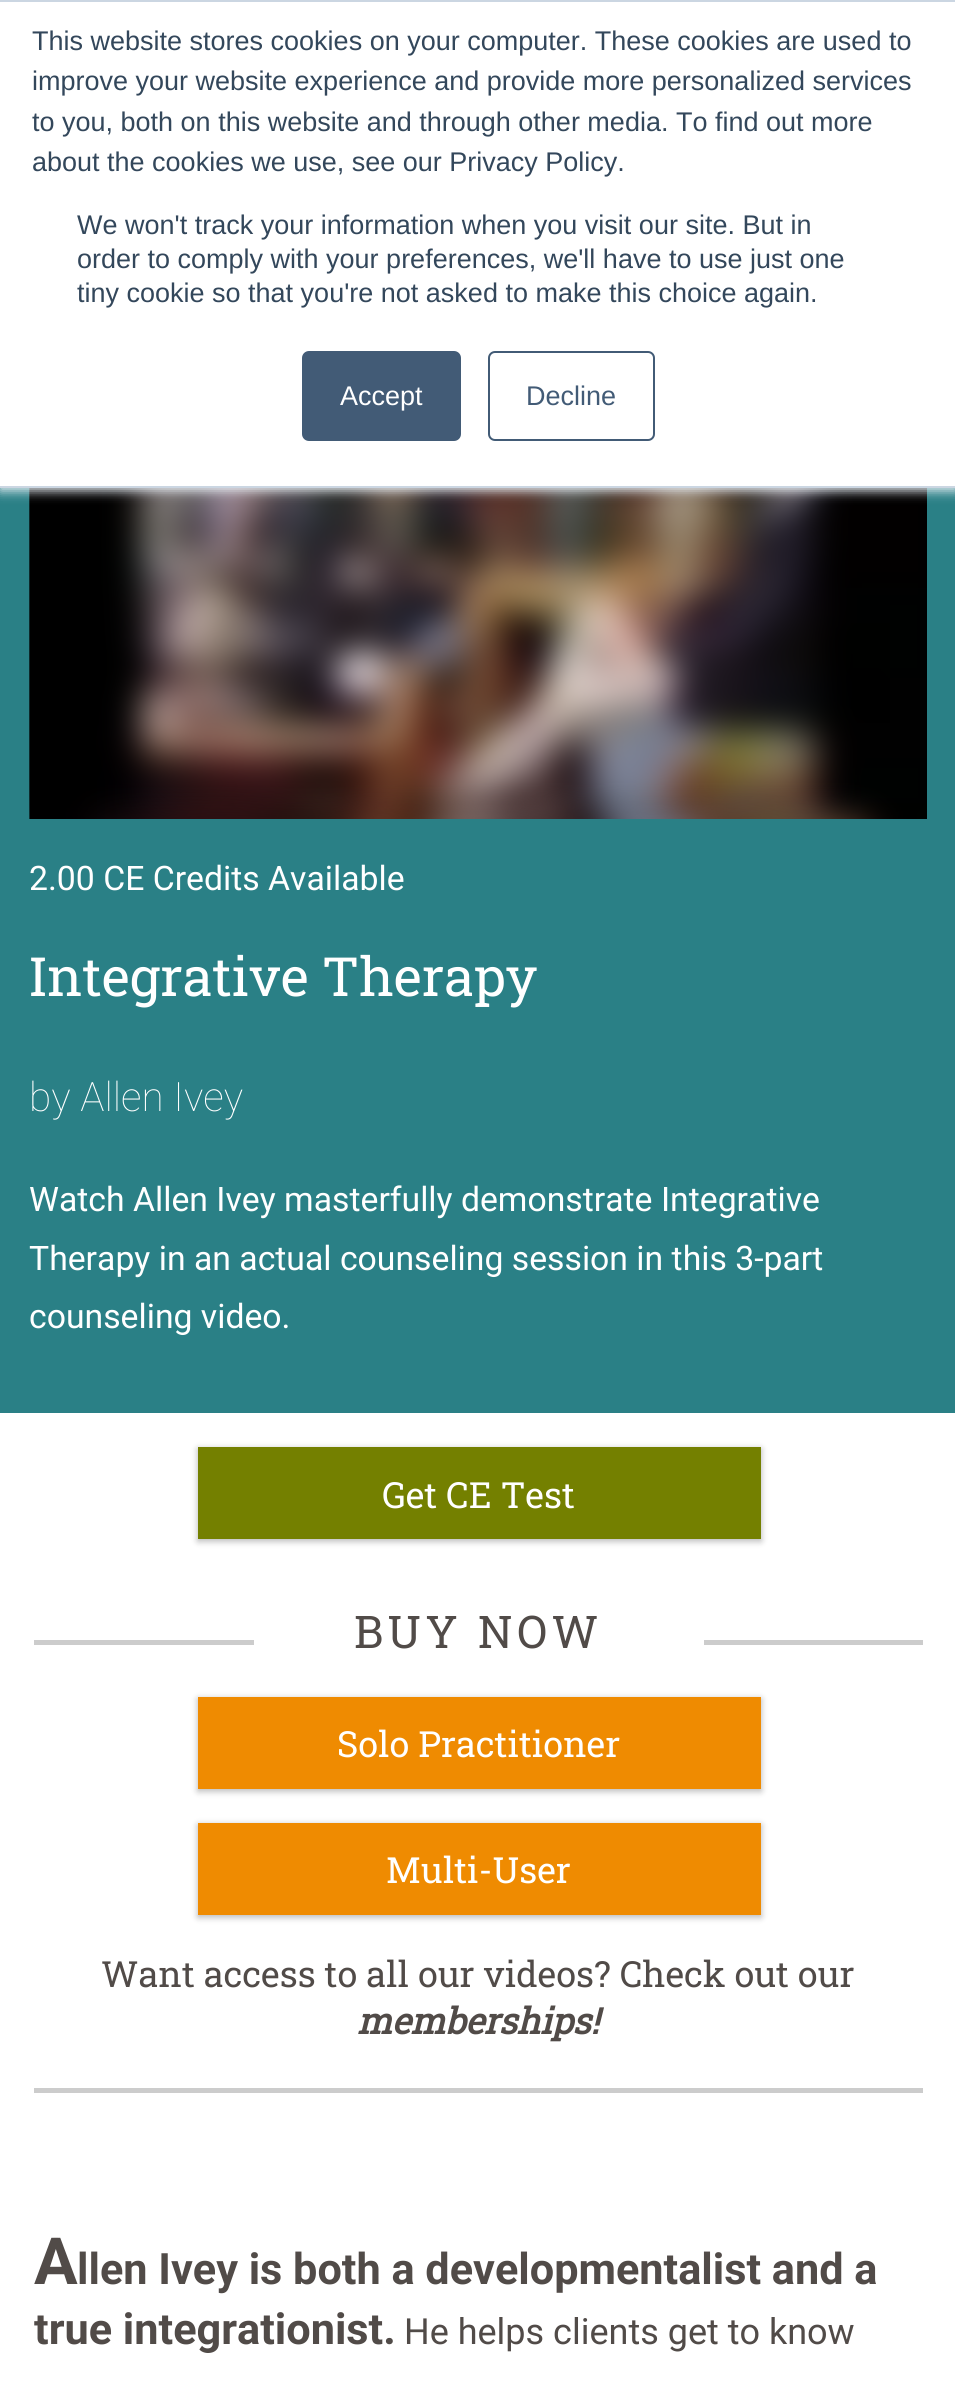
#include <cairo/cairo.h>
#include <math.h>
#include <stddef.h>

typedef struct { double x, y; const char *s; } line_t;
typedef struct { double x, y, w, h; unsigned color; } box_t;
static cairo_t *cr;

static void rgb(unsigned color)
{
	cairo_set_source_rgb(cr, (color >> 16) / 255.0, (color >> 8 & 255) / 255.0, (color & 255) / 255.0);
}

static void tracked(double x, double y, const char *s, double letter, double word)
{
	cairo_move_to(cr, x, y);
	while (*s) {
		char ch[5] = {0};
		int n = 0;
		do ch[n++] = *s++; while ((*s & 0xC0) == 0x80);
		cairo_show_text(cr, ch);
		cairo_rel_move_to(cr, letter + word * (*ch == ' '), 0);
	}
}

static void rrect(double x, double y, double w, double h, double r)
{
	cairo_new_sub_path(cr);
	cairo_arc(cr, x + w - r, y + h - r, r, 0, M_PI / 2);
	cairo_arc(cr, x + r, y + h - r, r, M_PI / 2, M_PI);
	cairo_arc(cr, x + r, y + r, r, M_PI, 1.5 * M_PI);
	cairo_arc(cr, x + w - r, y + r, r, 1.5 * M_PI, 2 * M_PI);
	cairo_close_path(cr);
}

static void soft_shadow(double x, double y, double w, double h, double r, double blur, double alpha)
{
	cairo_push_group_with_content(cr, CAIRO_CONTENT_ALPHA);
	cairo_set_operator(cr, CAIRO_OPERATOR_SOURCE);
	for (int i = 15; i >= -15 && fmin(w, h) + blur * i / 3 > 0; i -= 2) {
		double e = blur * i / 6;
		cairo_set_source_rgba(cr, 0, 0, 0, alpha * erfc((i - 1) / 8.5) / 2);
		rrect(x - e, y - e, w + 2 * e, h + 2 * e, fmax(0, fmin(r + e + blur * .6, fmin(w, h) / 2 + e)));
		cairo_fill(cr);
	}
	cairo_pattern_t *soft = cairo_pop_group(cr);
	cairo_mask(cr, soft);
	cairo_pattern_destroy(soft);
}

static void image(const char *path, double x, double y, double w, double h)
{
	cairo_surface_t *image = cairo_image_surface_create_from_png(path);
	cairo_save(cr);
	cairo_set_source_surface(cr, image, x, y);
	cairo_rectangle(cr, x, y, w, h);
	cairo_fill(cr);
	cairo_restore(cr);
	cairo_surface_destroy(image);
}

int main(void) {
	cairo_surface_t *surface = cairo_image_surface_create(CAIRO_FORMAT_RGB24, 955, 2388);
	cr = cairo_create(surface);
	cairo_font_options_t *options = cairo_font_options_create();
	cairo_font_options_set_hint_metrics(options, CAIRO_HINT_METRICS_OFF);
	cairo_font_options_set_hint_style(options, CAIRO_HINT_STYLE_NONE);
	cairo_set_font_options(cr, options);
	cairo_set_miter_limit(cr, 4);
	rgb(0xffffff);
	cairo_paint(cr);
	rgb(0x2a8086);
	cairo_rectangle(cr, 0, 488, 955, 925);
	cairo_fill(cr);
	image("img/1.png", 29, 488, 898, 331);
	rgb(0xeaf0f6);
	soft_shadow(0, 2, 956, 489, 0, 5.5, 1);
	{
		static const box_t items[] = {
			{0, 2, 955, 484, 0xffffff},
			{0, 0, 955, 2, 0xcbd6e2},
			{0, 486, 955, 2, 0xcbd6e2},
		};
		for (size_t i = 0; i < sizeof items / sizeof *items; i++) {
			rgb(items[i].color);
			cairo_rectangle(cr, items[i].x, items[i].y, items[i].w, items[i].h);
			cairo_fill(cr);
		}
	}
	rgb(0x425b76);
	rrect(303, 352, 157, 88, 6);
	cairo_fill_preserve(cr);
	cairo_stroke(cr);
	rrect(489, 352, 165, 88, 6);
	cairo_stroke(cr);
	rgb(0x000000);
	soft_shadow(198, 1449, 563, 92, 0, 3.5, 0.3);
	{
		static const box_t items[] = {
			{198, 1447, 563, 92, 0x748000},
			{34, 2088, 889, 5, 0xcccccc},
			{34, 1640, 889, 5, 0xcccccc},
			{254, 1640, 450, 5, 0xffffff},
		};
		for (size_t i = 0; i < sizeof items / sizeof *items; i++) {
			rgb(items[i].color);
			cairo_rectangle(cr, items[i].x, items[i].y, items[i].w, items[i].h);
			cairo_fill(cr);
		}
	}
	rgb(0x000000);
	soft_shadow(198, 1699, 563, 92, 0, 3.5, 0.3);
	rgb(0xef8b01);
	cairo_rectangle(cr, 198, 1697, 563, 92);
	cairo_fill(cr);
	rgb(0x000000);
	soft_shadow(198, 1825, 563, 92, 0, 3.5, 0.3);
	rgb(0xef8b01);
	cairo_rectangle(cr, 198, 1823, 563, 92);
	cairo_fill(cr);
	cairo_select_font_face(cr, "Liberation Sans", CAIRO_FONT_SLANT_NORMAL, CAIRO_FONT_WEIGHT_NORMAL);
	cairo_set_font_size(cr, 27);
	rgb(0x33475b);
	{
		static const line_t items[] = {
			{32, 50, "This website stores cookies on your computer. These cookies are used to"},
			{32, 90, "improve your website experience and provide more personalized services"},
			{32, 131, "to you, both on this website and through other media. To find out more"},
			{32, 171, "about the cookies we use, see our Privacy Policy."},
			{77, 234, "We won't track your information when you visit our site. But in"},
			{77, 268, "order to comply with your preferences, we'll have to use just one"},
			{77, 302, "tiny cookie so that you're not asked to make this choice again."},
		};
		for (size_t i = 0; i < sizeof items / sizeof *items; i++) {
			cairo_move_to(cr, items[i].x, items[i].y);
			cairo_show_text(cr, items[i].s);
		}
	}
	rgb(0xffffff);
	cairo_move_to(cr, 340, 405);
	cairo_show_text(cr, "Accept");
	rgb(0x425b76);
	cairo_move_to(cr, 526, 405);
	cairo_show_text(cr, "Decline");
	cairo_select_font_face(cr, "Roboto", CAIRO_FONT_SLANT_NORMAL, CAIRO_FONT_WEIGHT_NORMAL);
	cairo_set_font_size(cr, 33.75);
	rgb(0xffffff);
	cairo_move_to(cr, 29, 890);
	cairo_show_text(cr, "2.00 CE Credits Available");
	cairo_select_font_face(cr, "Roboto Slab", CAIRO_FONT_SLANT_NORMAL, CAIRO_FONT_WEIGHT_NORMAL);
	cairo_set_font_size(cr, 54);
	cairo_move_to(cr, 29, 996);
	cairo_show_text(cr, "Integrative Therapy");
	cairo_select_font_face(cr, "Roboto Thin", CAIRO_FONT_SLANT_NORMAL, CAIRO_FONT_WEIGHT_NORMAL);
	cairo_set_font_size(cr, 40.5);
	cairo_move_to(cr, 29, 1111);
	cairo_show_text(cr, "by Allen Ivey");
	cairo_select_font_face(cr, "Roboto", CAIRO_FONT_SLANT_NORMAL, CAIRO_FONT_WEIGHT_NORMAL);
	cairo_set_font_size(cr, 33.75);
	{
		static const line_t items[] = {
			{29, 1211, "Watch Allen Ivey masterfully demonstrate Integrative"},
			{29, 1270, "Therapy in an actual counseling session in this 3-part"},
			{29, 1328, "counseling video."},
		};
		for (size_t i = 0; i < sizeof items / sizeof *items; i++) {
			cairo_move_to(cr, items[i].x, items[i].y);
			cairo_show_text(cr, items[i].s);
		}
	}
	cairo_select_font_face(cr, "Roboto Slab", CAIRO_FONT_SLANT_NORMAL, CAIRO_FONT_WEIGHT_NORMAL);
	cairo_set_font_size(cr, 36);
	cairo_move_to(cr, 382, 1508);
	cairo_show_text(cr, "Get CE Test");
	cairo_set_font_size(cr, 45);
	rgb(0x514b48);
	tracked(354, 1648, "BUY NOW", 4.5, 0);
	cairo_set_font_size(cr, 36);
	rgb(0xffffff);
	cairo_move_to(cr, 337, 1757);
	cairo_show_text(cr, "Solo Practitioner");
	cairo_move_to(cr, 386, 1883);
	cairo_show_text(cr, "Multi-User");
	rgb(0x514b48);
	cairo_move_to(cr, 101, 1987);
	cairo_show_text(cr, "Want access to all our videos? Check out our");
	cairo_select_font_face(cr, "Roboto Slab", CAIRO_FONT_SLANT_ITALIC, CAIRO_FONT_WEIGHT_BOLD);
	cairo_move_to(cr, 357, 2034);
	cairo_show_text(cr, "memberships!");
	cairo_select_font_face(cr, "Roboto", CAIRO_FONT_SLANT_NORMAL, CAIRO_FONT_WEIGHT_BOLD);
	cairo_set_font_size(cr, 65);
	cairo_move_to(cr, 34, 2284);
	cairo_show_text(cr, "A");
	cairo_set_font_size(cr, 43.25);
	cairo_move_to(cr, 77, 2284);
	cairo_show_text(cr, "llen Ivey is both a developmentalist and a");
	cairo_move_to(cr, 34, 2344);
	cairo_show_text(cr, "true integrationist.");
	cairo_select_font_face(cr, "Roboto", CAIRO_FONT_SLANT_NORMAL, CAIRO_FONT_WEIGHT_NORMAL);
	cairo_set_font_size(cr, 36);
	cairo_move_to(cr, 404, 2344);
	cairo_show_text(cr, "He helps clients get to know");
	cairo_surface_write_to_png(surface, "page.png");
	cairo_font_options_destroy(options);
	cairo_destroy(cr);
	cairo_surface_destroy(surface);
	return 0;
}
